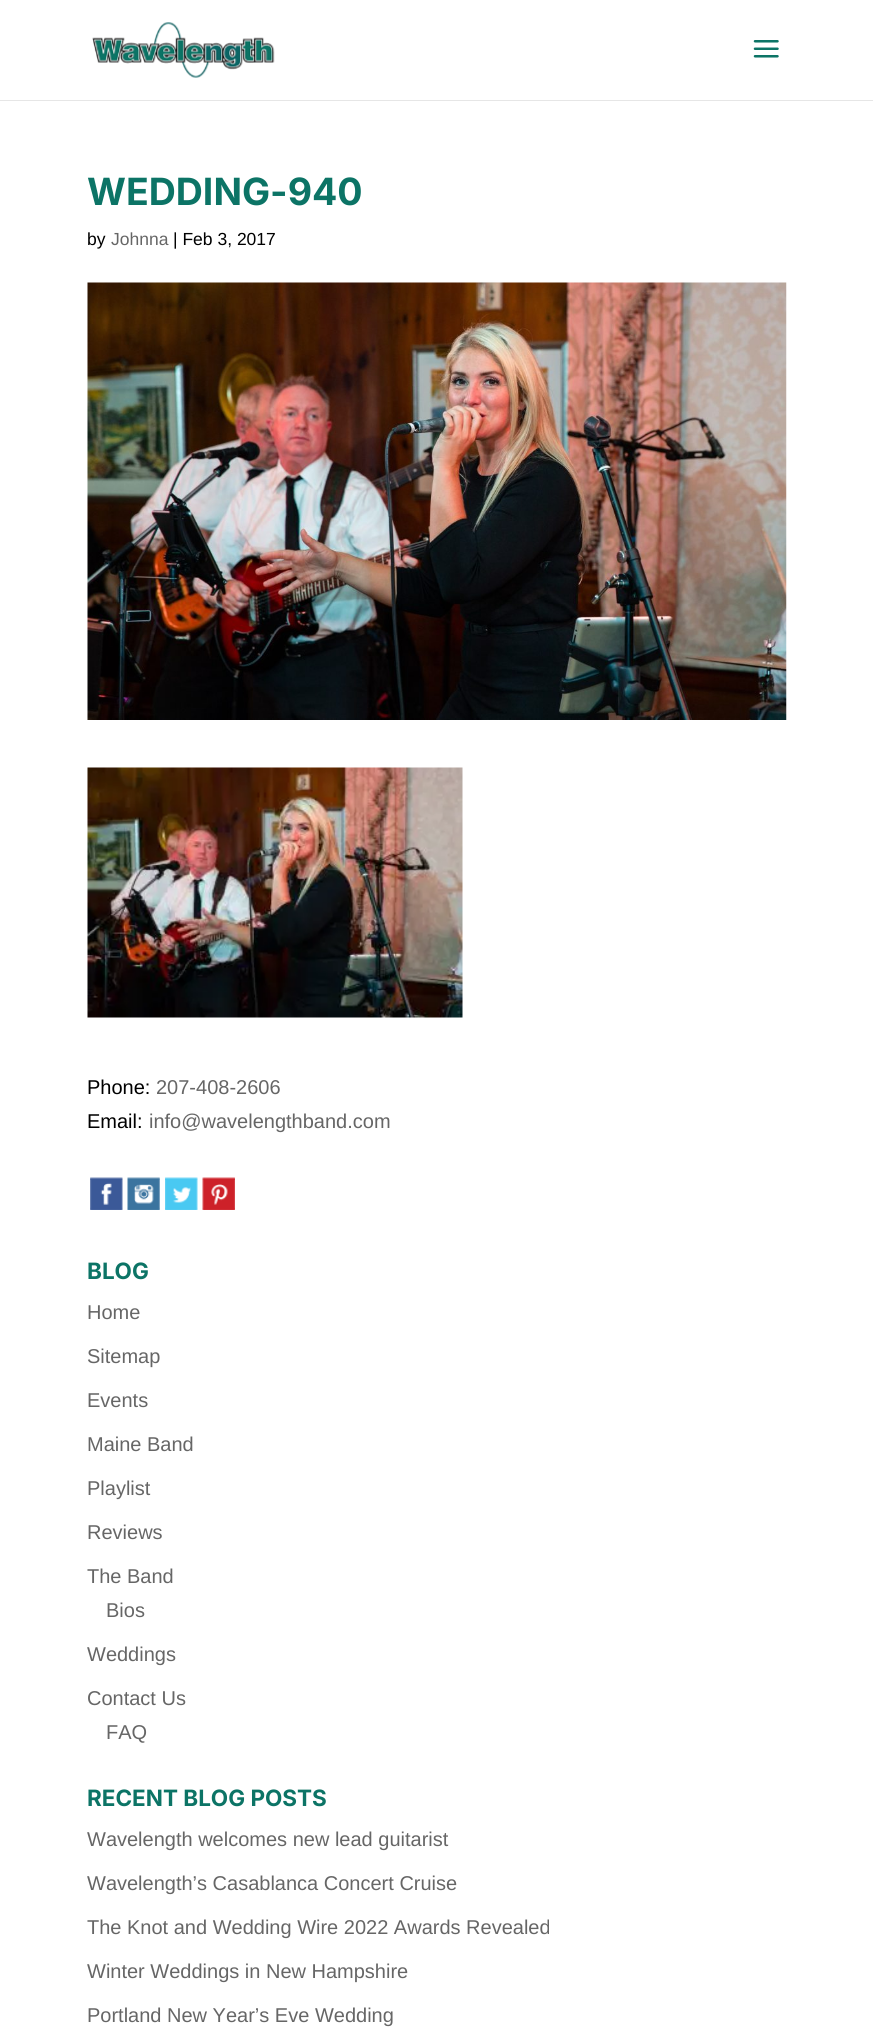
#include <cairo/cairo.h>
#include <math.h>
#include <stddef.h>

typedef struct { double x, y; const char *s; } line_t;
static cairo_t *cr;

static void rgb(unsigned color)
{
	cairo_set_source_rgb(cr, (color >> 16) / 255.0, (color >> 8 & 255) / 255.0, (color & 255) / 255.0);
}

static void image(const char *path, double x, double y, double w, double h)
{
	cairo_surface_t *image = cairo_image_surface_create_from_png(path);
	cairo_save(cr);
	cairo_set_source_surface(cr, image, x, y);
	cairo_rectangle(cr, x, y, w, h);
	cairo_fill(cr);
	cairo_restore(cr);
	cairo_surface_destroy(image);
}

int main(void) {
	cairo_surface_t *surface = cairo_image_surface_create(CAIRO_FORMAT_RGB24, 873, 2037);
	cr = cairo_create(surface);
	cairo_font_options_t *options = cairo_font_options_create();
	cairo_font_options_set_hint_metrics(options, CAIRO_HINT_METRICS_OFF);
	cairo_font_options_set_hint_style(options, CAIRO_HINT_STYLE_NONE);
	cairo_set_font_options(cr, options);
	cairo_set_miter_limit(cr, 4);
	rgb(0xffffff);
	cairo_paint(cr);
	rgb(0xe6e6e6);
	cairo_new_path(cr);
	cairo_move_to(cr, 0, 100);
	cairo_line_to(cr, 0, 101);
	cairo_line_to(cr, 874, 101);
	cairo_line_to(cr, 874, 1);
	cairo_line_to(cr, 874, 100);
	cairo_close_path(cr);
	cairo_fill(cr);
	image("img/1.png", 92, 22, 183, 56);
	image("img/2.png", 753, 40, 26, 18);
	image("img/3.png", 87, 282, 700, 438);
	image("img/4.png", 87, 767, 376, 251);
	image("img/5.png", 90, 1177, 33, 33);
	image("img/6.png", 127, 1177, 33, 33);
	image("img/7.png", 165, 1177, 33, 33);
	image("img/8.png", 202, 1177, 33, 33);
	cairo_select_font_face(cr, "Inter", CAIRO_FONT_SLANT_NORMAL, CAIRO_FONT_WEIGHT_BOLD);
	cairo_set_font_size(cr, 37.5);
	rgb(0x0c7466);
	cairo_move_to(cr, 87, 205);
	cairo_show_text(cr, "WEDDING-940");
	cairo_select_font_face(cr, "Liberation Sans", CAIRO_FONT_SLANT_NORMAL, CAIRO_FONT_WEIGHT_NORMAL);
	cairo_set_font_size(cr, 17.5);
	rgb(0x000000);
	cairo_move_to(cr, 87, 245);
	cairo_show_text(cr, "by");
	rgb(0x666666);
	cairo_move_to(cr, 111, 245);
	cairo_show_text(cr, "Johnna");
	rgb(0x000000);
	cairo_move_to(cr, 173, 245);
	cairo_show_text(cr, "| Feb 3, 2017");
	cairo_set_font_size(cr, 20);
	cairo_move_to(cr, 87, 1094);
	cairo_show_text(cr, "Phone:");
	rgb(0x666666);
	cairo_move_to(cr, 156, 1094);
	cairo_show_text(cr, "207-408-2606");
	rgb(0x000000);
	cairo_move_to(cr, 87, 1128);
	cairo_show_text(cr, "Email:");
	rgb(0x666666);
	cairo_move_to(cr, 149, 1128);
	cairo_show_text(cr, "info@wavelengthband.com");
	cairo_select_font_face(cr, "Inter", CAIRO_FONT_SLANT_NORMAL, CAIRO_FONT_WEIGHT_BOLD);
	cairo_set_font_size(cr, 22.5);
	rgb(0x0c7466);
	cairo_move_to(cr, 87, 1279);
	cairo_show_text(cr, "BLOG");
	cairo_select_font_face(cr, "Liberation Sans", CAIRO_FONT_SLANT_NORMAL, CAIRO_FONT_WEIGHT_NORMAL);
	cairo_set_font_size(cr, 20);
	rgb(0x666666);
	{
		static const line_t items[] = {
			{87, 1319, "Home"},
			{87, 1363, "Sitemap"},
			{87, 1407, "Events"},
			{87, 1451, "Maine Band"},
			{87, 1495, "Playlist"},
			{87, 1539, "Reviews"},
			{87, 1583, "The Band"},
			{106, 1617, "Bios"},
			{87, 1661, "Weddings"},
			{87, 1705, "Contact Us"},
			{106, 1739, "FAQ"},
		};
		for (size_t i = 0; i < sizeof items / sizeof *items; i++) {
			cairo_move_to(cr, items[i].x, items[i].y);
			cairo_show_text(cr, items[i].s);
		}
	}
	cairo_select_font_face(cr, "Inter", CAIRO_FONT_SLANT_NORMAL, CAIRO_FONT_WEIGHT_BOLD);
	cairo_set_font_size(cr, 22.5);
	rgb(0x0c7466);
	cairo_move_to(cr, 87, 1806);
	cairo_show_text(cr, "RECENT BLOG POSTS");
	cairo_select_font_face(cr, "Liberation Sans", CAIRO_FONT_SLANT_NORMAL, CAIRO_FONT_WEIGHT_NORMAL);
	cairo_set_font_size(cr, 20);
	rgb(0x666666);
	{
		static const line_t items[] = {
			{87, 1846, "Wavelength welcomes new lead guitarist"},
			{87, 1890, "Wavelength’s Casablanca Concert Cruise"},
			{87, 1934, "The Knot and Wedding Wire 2022 Awards Revealed"},
			{87, 1978, "Winter Weddings in New Hampshire"},
			{87, 2022, "Portland New Year’s Eve Wedding"},
		};
		for (size_t i = 0; i < sizeof items / sizeof *items; i++) {
			cairo_move_to(cr, items[i].x, items[i].y);
			cairo_show_text(cr, items[i].s);
		}
	}
	cairo_surface_write_to_png(surface, "page.png");
	cairo_font_options_destroy(options);
	cairo_destroy(cr);
	cairo_surface_destroy(surface);
	return 0;
}
